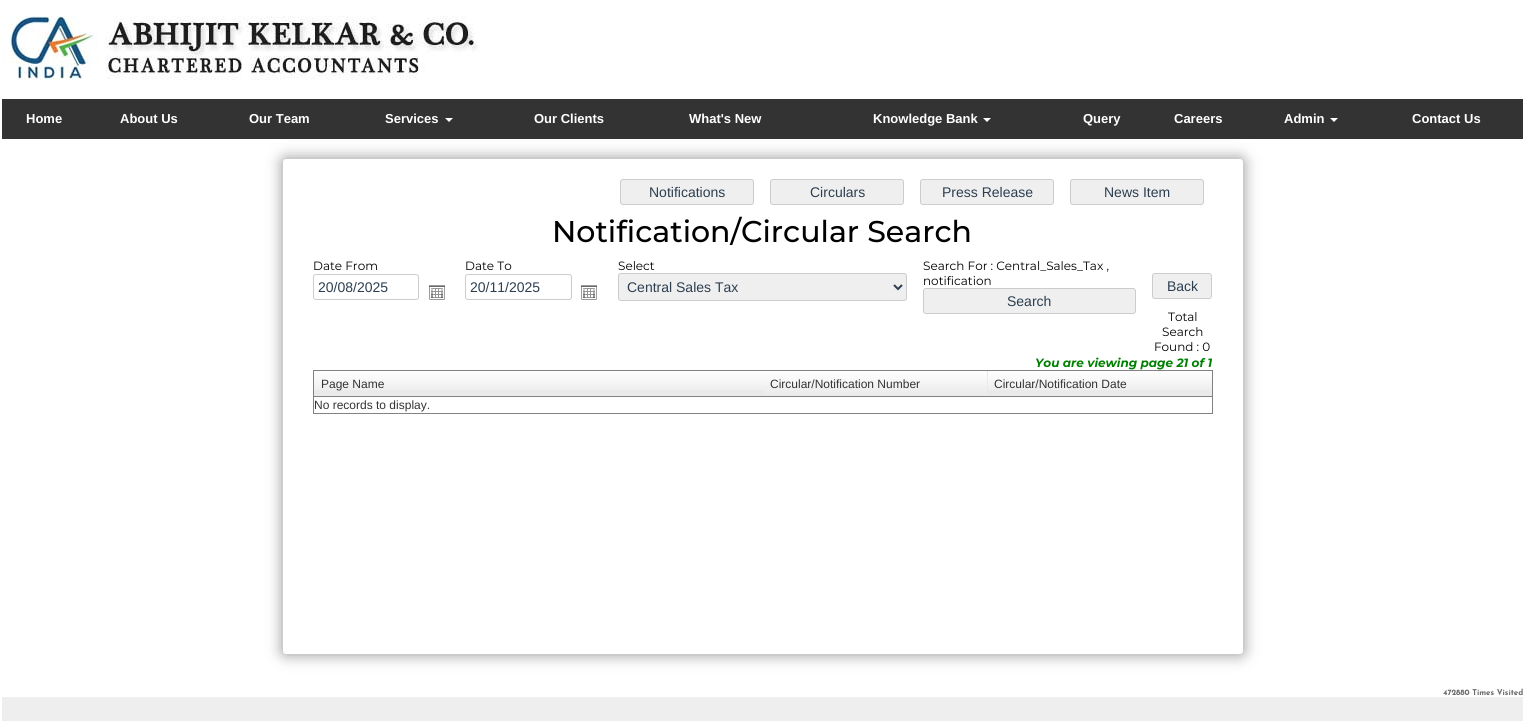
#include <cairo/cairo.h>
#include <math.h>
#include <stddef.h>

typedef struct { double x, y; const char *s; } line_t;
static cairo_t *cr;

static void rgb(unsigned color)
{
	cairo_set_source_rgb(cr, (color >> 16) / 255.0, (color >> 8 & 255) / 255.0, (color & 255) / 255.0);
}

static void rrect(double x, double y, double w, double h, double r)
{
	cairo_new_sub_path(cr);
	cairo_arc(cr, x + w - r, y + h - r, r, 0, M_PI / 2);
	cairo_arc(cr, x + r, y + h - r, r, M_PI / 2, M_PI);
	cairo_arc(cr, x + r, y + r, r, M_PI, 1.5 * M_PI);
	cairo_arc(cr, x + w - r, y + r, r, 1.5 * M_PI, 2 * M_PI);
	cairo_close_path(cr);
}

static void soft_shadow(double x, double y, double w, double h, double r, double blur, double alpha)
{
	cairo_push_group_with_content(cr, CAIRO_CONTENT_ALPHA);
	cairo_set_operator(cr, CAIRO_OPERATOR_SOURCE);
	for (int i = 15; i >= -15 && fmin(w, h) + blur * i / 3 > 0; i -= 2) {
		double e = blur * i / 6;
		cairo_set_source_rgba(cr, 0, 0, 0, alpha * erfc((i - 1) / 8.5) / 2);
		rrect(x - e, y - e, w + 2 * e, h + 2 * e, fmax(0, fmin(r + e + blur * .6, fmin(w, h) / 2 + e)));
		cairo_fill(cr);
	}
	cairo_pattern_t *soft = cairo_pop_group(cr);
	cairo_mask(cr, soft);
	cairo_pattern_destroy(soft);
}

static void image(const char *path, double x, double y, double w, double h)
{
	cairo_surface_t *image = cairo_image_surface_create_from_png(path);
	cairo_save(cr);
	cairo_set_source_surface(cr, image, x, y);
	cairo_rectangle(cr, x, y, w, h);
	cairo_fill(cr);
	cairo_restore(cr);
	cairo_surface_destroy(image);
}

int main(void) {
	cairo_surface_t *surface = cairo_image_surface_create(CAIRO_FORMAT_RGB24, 1525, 721);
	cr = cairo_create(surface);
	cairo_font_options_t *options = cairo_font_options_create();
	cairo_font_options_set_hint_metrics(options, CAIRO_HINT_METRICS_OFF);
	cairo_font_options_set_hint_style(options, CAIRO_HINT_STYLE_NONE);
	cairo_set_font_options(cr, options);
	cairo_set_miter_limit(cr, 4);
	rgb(0xffffff);
	cairo_paint(cr);
	image("img/1.png", 2, 15, 476, 65);
	rgb(0x000000);
	soft_shadow(282, 158, 962, 497, 4, 7.5, 0.4);
	rgb(0x333333);
	cairo_rectangle(cr, 2, 99, 1521, 40);
	cairo_fill(cr);
	rgb(0xffffff);
	cairo_new_path(cr);
	cairo_move_to(cr, 445, 118);
	cairo_line_to(cr, 453, 118);
	cairo_line_to(cr, 449, 122);
	cairo_close_path(cr);
	cairo_fill(cr);
	cairo_new_path(cr);
	cairo_move_to(cr, 983, 118);
	cairo_line_to(cr, 991, 118);
	cairo_line_to(cr, 987, 122);
	cairo_close_path(cr);
	cairo_fill(cr);
	cairo_new_path(cr);
	cairo_move_to(cr, 1330, 118);
	cairo_line_to(cr, 1338, 118);
	cairo_line_to(cr, 1334, 122);
	cairo_close_path(cr);
	cairo_fill(cr);
	rrect(283, 159, 960, 495, 3);
	cairo_fill(cr);
	rgb(0xefefef);
	rrect(620.5, 179.5, 133, 25, 2.5);
	cairo_fill_preserve(cr);
	rgb(0xcccccc);
	cairo_set_line_width(cr, 1);
	cairo_stroke(cr);
	rgb(0xefefef);
	rrect(770.5, 179.5, 133, 25, 2.5);
	cairo_fill_preserve(cr);
	rgb(0xcccccc);
	cairo_stroke(cr);
	rgb(0xefefef);
	rrect(920.5, 179.5, 133, 25, 2.5);
	cairo_fill_preserve(cr);
	rgb(0xcccccc);
	cairo_stroke(cr);
	rgb(0xefefef);
	rrect(1070.5, 179.5, 133, 25, 2.5);
	cairo_fill_preserve(cr);
	rgb(0xcccccc);
	cairo_stroke(cr);
	rrect(313.5, 274.5, 105, 25, 2.5);
	cairo_stroke(cr);
	image("img/2.png", 429, 285, 16, 15);
	rrect(465.5, 274.5, 106, 25, 2.5);
	cairo_stroke(cr);
	image("img/2.png", 581, 285, 16, 15);
	rgb(0xefefef);
	rrect(618.5, 273.5, 288, 27, 2.5);
	cairo_fill_preserve(cr);
	rgb(0xcccccc);
	cairo_stroke(cr);
	cairo_new_path(cr);
	cairo_move_to(cr, 894, 285);
	cairo_line_to(cr, 898, 289);
	cairo_line_to(cr, 902, 285);
	rgb(0x2c3e50);
	cairo_set_line_width(cr, 2);
	cairo_stroke(cr);
	rgb(0xefefef);
	rrect(923.5, 288.5, 212, 25, 2.5);
	cairo_fill_preserve(cr);
	rgb(0xcccccc);
	cairo_set_line_width(cr, 1);
	cairo_stroke(cr);
	rgb(0xefefef);
	rrect(1152.5, 273.5, 59, 25, 2.5);
	cairo_fill_preserve(cr);
	rgb(0xcccccc);
	cairo_stroke(cr);
	cairo_rectangle(cr, 313.5, 370.5, 899, 43);
	rgb(0x828282);
	cairo_stroke(cr);
	rgb(0xeaeaea);
	cairo_rectangle(cr, 314, 390, 449, 6);
	cairo_fill(cr);
	image("img/3.png", 314, 371, 449, 19);
	rgb(0x828282);
	cairo_rectangle(cr, 314, 396, 898, 1);
	cairo_fill(cr);
	image("img/4.png", 763, 371, 224, 25);
	rgb(0xeaeaea);
	cairo_rectangle(cr, 987, 371, 225, 25);
	cairo_fill(cr);
	image("img/5.png", 988, 371, 224, 19);
	rgb(0xeeeeee);
	cairo_rectangle(cr, 2, 697, 1521, 24);
	cairo_fill(cr);
	cairo_select_font_face(cr, "Liberation Sans", CAIRO_FONT_SLANT_NORMAL, CAIRO_FONT_WEIGHT_BOLD);
	cairo_set_font_size(cr, 13);
	rgb(0xffffff);
	{
		static const line_t items[] = {
			{26, 123, "Home"},
			{120, 123, "About Us"},
			{249, 123, "Our Team"},
			{385, 123, "Services"},
			{534, 123, "Our Clients"},
			{689, 123, "What's New"},
			{873, 123, "Knowledge Bank"},
			{1083, 123, "Query"},
			{1174, 123, "Careers"},
			{1284, 123, "Admin"},
			{1412, 123, "Contact Us"},
		};
		for (size_t i = 0; i < sizeof items / sizeof *items; i++) {
			cairo_move_to(cr, items[i].x, items[i].y);
			cairo_show_text(cr, items[i].s);
		}
	}
	cairo_select_font_face(cr, "Liberation Sans", CAIRO_FONT_SLANT_NORMAL, CAIRO_FONT_WEIGHT_NORMAL);
	cairo_set_font_size(cr, 14);
	rgb(0x2c3e50);
	{
		static const line_t items[] = {
			{649, 197, "Notifications"},
			{810, 197, "Circulars"},
			{942, 197, "Press Release"},
			{1104, 197, "News Item"},
		};
		for (size_t i = 0; i < sizeof items / sizeof *items; i++) {
			cairo_move_to(cr, items[i].x, items[i].y);
			cairo_show_text(cr, items[i].s);
		}
	}
	cairo_select_font_face(cr, "Montserrat Medium", CAIRO_FONT_SLANT_NORMAL, CAIRO_FONT_WEIGHT_NORMAL);
	cairo_set_font_size(cr, 30);
	rgb(0x000000);
	cairo_move_to(cr, 552, 242);
	cairo_show_text(cr, "Notification/Circular Search");
	cairo_select_font_face(cr, "Montserrat", CAIRO_FONT_SLANT_NORMAL, CAIRO_FONT_WEIGHT_NORMAL);
	cairo_set_font_size(cr, 12);
	cairo_move_to(cr, 313, 270);
	cairo_show_text(cr, "Date From");
	cairo_select_font_face(cr, "Liberation Sans", CAIRO_FONT_SLANT_NORMAL, CAIRO_FONT_WEIGHT_NORMAL);
	cairo_set_font_size(cr, 14);
	rgb(0x2c3e50);
	cairo_move_to(cr, 318, 292);
	cairo_show_text(cr, "20/08/2025");
	cairo_select_font_face(cr, "Montserrat", CAIRO_FONT_SLANT_NORMAL, CAIRO_FONT_WEIGHT_NORMAL);
	cairo_set_font_size(cr, 12);
	rgb(0x000000);
	cairo_move_to(cr, 465, 270);
	cairo_show_text(cr, "Date To");
	cairo_select_font_face(cr, "Liberation Sans", CAIRO_FONT_SLANT_NORMAL, CAIRO_FONT_WEIGHT_NORMAL);
	cairo_set_font_size(cr, 14);
	rgb(0x2c3e50);
	cairo_move_to(cr, 470, 292);
	cairo_show_text(cr, "20/11/2025");
	cairo_select_font_face(cr, "Montserrat", CAIRO_FONT_SLANT_NORMAL, CAIRO_FONT_WEIGHT_NORMAL);
	cairo_set_font_size(cr, 12);
	rgb(0x000000);
	cairo_move_to(cr, 618, 270);
	cairo_show_text(cr, "Select");
	cairo_select_font_face(cr, "Liberation Sans", CAIRO_FONT_SLANT_NORMAL, CAIRO_FONT_WEIGHT_NORMAL);
	cairo_set_font_size(cr, 14);
	rgb(0x2c3e50);
	cairo_move_to(cr, 627, 292);
	cairo_show_text(cr, "Central Sales Tax");
	cairo_select_font_face(cr, "Montserrat", CAIRO_FONT_SLANT_NORMAL, CAIRO_FONT_WEIGHT_NORMAL);
	cairo_set_font_size(cr, 12);
	rgb(0x000000);
	cairo_move_to(cr, 923, 270);
	cairo_show_text(cr, "Search For : Central_Sales_Tax ,");
	cairo_move_to(cr, 923, 285);
	cairo_show_text(cr, "notification");
	cairo_select_font_face(cr, "Liberation Sans", CAIRO_FONT_SLANT_NORMAL, CAIRO_FONT_WEIGHT_NORMAL);
	cairo_set_font_size(cr, 14);
	rgb(0x2c3e50);
	cairo_move_to(cr, 1007, 306);
	cairo_show_text(cr, "Search");
	cairo_move_to(cr, 1167, 291);
	cairo_show_text(cr, "Back");
	cairo_select_font_face(cr, "Montserrat", CAIRO_FONT_SLANT_NORMAL, CAIRO_FONT_WEIGHT_NORMAL);
	cairo_set_font_size(cr, 12);
	rgb(0x000000);
	{
		static const line_t items[] = {
			{1168, 321, "Total"},
			{1162, 336, "Search"},
			{1154, 351, "Found : 0"},
		};
		for (size_t i = 0; i < sizeof items / sizeof *items; i++) {
			cairo_move_to(cr, items[i].x, items[i].y);
			cairo_show_text(cr, items[i].s);
		}
	}
	cairo_select_font_face(cr, "Montserrat", CAIRO_FONT_SLANT_ITALIC, CAIRO_FONT_WEIGHT_BOLD);
	rgb(0x008000);
	cairo_move_to(cr, 1035, 367);
	cairo_show_text(cr, "You are viewing page 21 of 1");
	cairo_select_font_face(cr, "Liberation Sans", CAIRO_FONT_SLANT_NORMAL, CAIRO_FONT_WEIGHT_NORMAL);
	rgb(0x333333);
	{
		static const line_t items[] = {
			{321, 388, "Page Name"},
			{770, 388, "Circular/Notification Number"},
			{994, 388, "Circular/Notification Date"},
			{314, 409, "No records to display."},
		};
		for (size_t i = 0; i < sizeof items / sizeof *items; i++) {
			cairo_move_to(cr, items[i].x, items[i].y);
			cairo_show_text(cr, items[i].s);
		}
	}
	cairo_select_font_face(cr, "Josefin Sans", CAIRO_FONT_SLANT_NORMAL, CAIRO_FONT_WEIGHT_BOLD);
	cairo_set_font_size(cr, 8);
	rgb(0x696969);
	cairo_move_to(cr, 1443, 695);
	cairo_show_text(cr, "472880 Times Visited");
	cairo_surface_write_to_png(surface, "page.png");
	cairo_font_options_destroy(options);
	cairo_destroy(cr);
	cairo_surface_destroy(surface);
	return 0;
}
